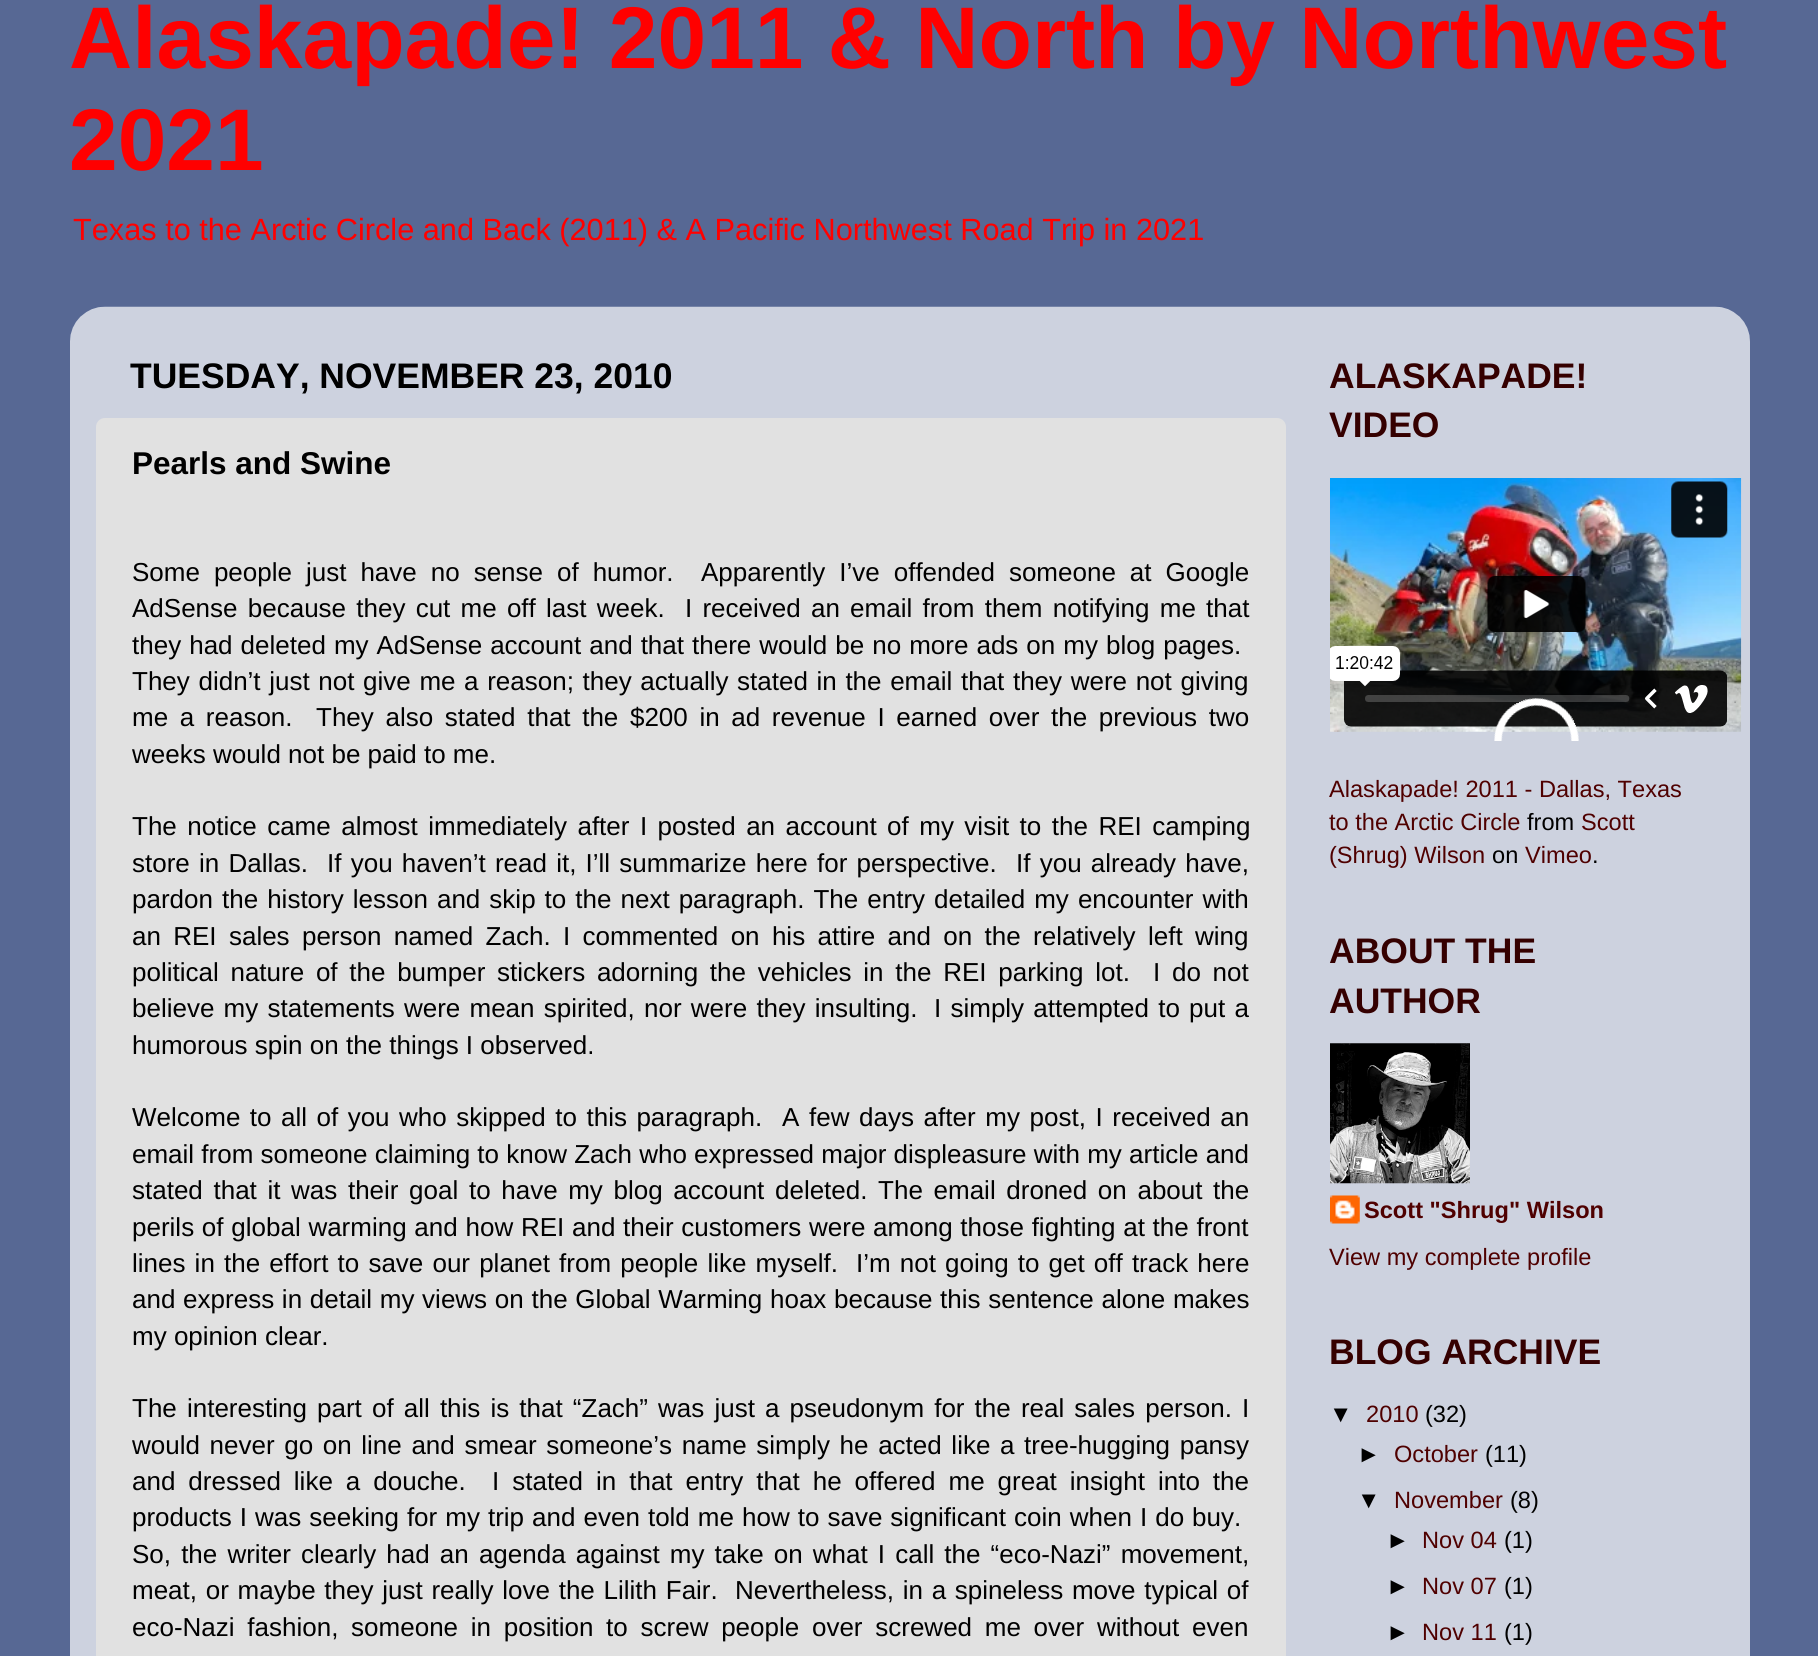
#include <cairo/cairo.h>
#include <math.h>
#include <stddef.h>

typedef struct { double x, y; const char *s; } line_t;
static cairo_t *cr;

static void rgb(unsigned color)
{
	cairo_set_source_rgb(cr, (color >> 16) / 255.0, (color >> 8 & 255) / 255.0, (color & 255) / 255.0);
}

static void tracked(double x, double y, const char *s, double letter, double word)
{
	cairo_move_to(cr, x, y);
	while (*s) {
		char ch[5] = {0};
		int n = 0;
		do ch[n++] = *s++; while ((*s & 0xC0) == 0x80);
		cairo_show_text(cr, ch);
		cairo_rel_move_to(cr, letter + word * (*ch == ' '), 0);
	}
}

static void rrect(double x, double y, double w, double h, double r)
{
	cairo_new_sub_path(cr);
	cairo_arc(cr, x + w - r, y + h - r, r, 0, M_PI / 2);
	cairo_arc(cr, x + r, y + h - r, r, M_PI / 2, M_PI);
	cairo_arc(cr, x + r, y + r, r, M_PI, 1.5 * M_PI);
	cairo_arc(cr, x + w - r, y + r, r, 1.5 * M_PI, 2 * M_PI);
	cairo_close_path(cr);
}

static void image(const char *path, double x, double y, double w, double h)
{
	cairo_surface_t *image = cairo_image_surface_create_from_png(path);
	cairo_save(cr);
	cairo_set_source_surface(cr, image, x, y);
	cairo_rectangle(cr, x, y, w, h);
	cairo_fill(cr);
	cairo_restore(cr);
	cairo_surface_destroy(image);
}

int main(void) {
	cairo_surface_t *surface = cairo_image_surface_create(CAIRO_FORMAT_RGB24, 1818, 1656);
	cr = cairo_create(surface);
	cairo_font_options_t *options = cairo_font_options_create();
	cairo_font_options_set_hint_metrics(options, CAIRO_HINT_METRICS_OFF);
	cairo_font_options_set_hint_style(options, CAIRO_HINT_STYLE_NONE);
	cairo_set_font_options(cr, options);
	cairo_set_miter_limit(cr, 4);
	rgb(0x576894);
	cairo_paint(cr);
	image("img/1.png", 70, 306, 1680, 1350);
	rgb(0xe1e1e1);
	rrect(97, 419, 1188, 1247, 8);
	cairo_fill_preserve(cr);
	cairo_stroke(cr);
	image("img/2.png", 1330, 478, 412, 263);
	image("img/3.png", 1330, 1043, 140, 141);
	image("img/4.png", 1330, 1195, 30, 29);
	cairo_select_font_face(cr, "Liberation Sans", CAIRO_FONT_SLANT_NORMAL, CAIRO_FONT_WEIGHT_BOLD);
	cairo_set_font_size(cr, 87.5);
	rgb(0xff0000);
	cairo_move_to(cr, 69, 68);
	cairo_show_text(cr, "Alaskapade! 2011 & North by Northwest");
	cairo_move_to(cr, 69, 170);
	cairo_show_text(cr, "2021");
	cairo_select_font_face(cr, "Liberation Sans", CAIRO_FONT_SLANT_NORMAL, CAIRO_FONT_WEIGHT_NORMAL);
	cairo_set_font_size(cr, 30.7);
	cairo_move_to(cr, 73, 240);
	cairo_show_text(cr, "Texas to the Arctic Circle and Back (2011) & A Pacific Northwest Road Trip in 2021");
	cairo_select_font_face(cr, "Liberation Sans", CAIRO_FONT_SLANT_NORMAL, CAIRO_FONT_WEIGHT_BOLD);
	cairo_set_font_size(cr, 35.5);
	rgb(0x000000);
	cairo_move_to(cr, 130, 388);
	cairo_show_text(cr, "TUESDAY, NOVEMBER 23, 2010");
	cairo_set_font_size(cr, 31.5);
	cairo_move_to(cr, 132, 474);
	cairo_show_text(cr, "Pearls and Swine");
	cairo_select_font_face(cr, "Liberation Sans", CAIRO_FONT_SLANT_NORMAL, CAIRO_FONT_WEIGHT_NORMAL);
	cairo_set_font_size(cr, 26);
	tracked(132, 581, "Some people just have no sense of humor.", 0, 6.75);
	tracked(701, 581, "Apparently I’ve offended someone at Google", 0, 6.75);
	tracked(132, 617, "AdSense because they cut me off last week.", 0, 3);
	tracked(685, 617, "I received an email from them notifying me that", 0, 3);
	tracked(132, 654, "they had deleted my AdSense account and that there would be no more ads on my blog pages.", 0, 0.8);
	tracked(132, 690, "They didn’t just not give me a reason; they actually stated in the email that they were not giving", 0, 1.4);
	tracked(132, 726, "me a reason.", 0, 4.4);
	tracked(316, 726, "They also stated that the $200 in ad revenue I earned over the previous two", 0, 4.4);
	cairo_move_to(cr, 132, 763);
	cairo_show_text(cr, "weeks would not be paid to me.");
	tracked(132, 835, "The notice came almost immediately after I posted an account of my visit to the REI camping", 0, 3.25);
	{
		static const line_t items[] = {
			{132, 872, "store in Dallas."},
			{327, 872, "If you haven’t read it, I’ll summarize here for perspective."},
			{1016, 872, "If you already have,"},
		};
		for (size_t i = 0; i < sizeof items / sizeof *items; i++) {
			tracked(items[i].x, items[i].y, items[i].s, 0, 2);
		}
	}
	tracked(132, 908, "pardon the history lesson and skip to the next paragraph. The entry detailed my encounter with", 0, 1.8);
	tracked(132, 945, "an REI sales person named Zach. I commented on his attire and on the relatively left wing", 0, 5.1);
	tracked(132, 981, "political nature of the bumper stickers adorning the vehicles in the REI parking lot.", 0, 4.5);
	tracked(1153, 981, "I do not", 0, 4.5);
	tracked(132, 1017, "believe my statements were mean spirited, nor were they insulting.", 0, 2);
	tracked(934, 1017, "I simply attempted to put a", 0, 2);
	cairo_move_to(cr, 132, 1054);
	cairo_show_text(cr, "humorous spin on the things I observed.");
	tracked(132, 1126, "Welcome to all of you who skipped to this paragraph.", 0, 2.25);
	tracked(782, 1126, "A few days after my post, I received an", 0, 2.4);
	cairo_move_to(cr, 132, 1163);
	cairo_show_text(cr, "email from someone claiming to know Zach who expressed major displeasure with my article and");
	tracked(132, 1199, "stated that it was their goal to have my blog account deleted. The email droned on about the", 0, 3.4);
	tracked(132, 1236, "perils of global warming and how REI and their customers were among those fighting at the front", 0, 0.5);
	tracked(132, 1272, "lines in the effort to save our planet from people like myself.", 0, 1.9);
	tracked(856, 1272, "I’m not going to get off track here", 0, 1.9);
	tracked(132, 1308, "and express in detail my views on the Global Warming hoax because this sentence alone makes", 0, 0.5);
	cairo_move_to(cr, 132, 1345);
	cairo_show_text(cr, "my opinion clear.");
	tracked(132, 1417, "The interesting part of all this is that “Zach” was just a pseudonym for the real sales person. I", 0, 2.9);
	tracked(132, 1454, "would never go on line and smear someone’s name simply he acted like a tree-hugging pansy", 0, 2.4);
	tracked(132, 1490, "and dressed like a douche.", 0, 5.75);
	tracked(492, 1490, "I stated in that entry that he offered me great insight into the", 0, 5.75);
	tracked(132, 1526, "products I was seeking for my trip and even told me how to save significant coin when I do buy.", 0, 0.8);
	tracked(132, 1563, "So, the writer clearly had an agenda against my take on what I call the “eco-Nazi” movement,", 0, 2.9);
	tracked(132, 1599, "meat, or maybe they just really love the Lilith Fair.", 0, 1.5);
	tracked(735, 1599, "Nevertheless, in a spineless move typical of", 0, 1.5);
	tracked(132, 1636, "eco-Nazi fashion, someone in position to screw people over screwed me over without even", 0, 5.5);
	cairo_select_font_face(cr, "Liberation Sans", CAIRO_FONT_SLANT_NORMAL, CAIRO_FONT_WEIGHT_BOLD);
	cairo_set_font_size(cr, 35.5);
	rgb(0x350000);
	cairo_move_to(cr, 1329, 388);
	cairo_show_text(cr, "ALASKAPADE!");
	cairo_move_to(cr, 1329, 437);
	cairo_show_text(cr, "VIDEO");
	cairo_select_font_face(cr, "Liberation Sans", CAIRO_FONT_SLANT_NORMAL, CAIRO_FONT_WEIGHT_NORMAL);
	cairo_set_font_size(cr, 23.6);
	rgb(0x4f0000);
	cairo_move_to(cr, 1329, 797);
	cairo_show_text(cr, "Alaskapade! 2011 - Dallas, Texas");
	cairo_move_to(cr, 1329, 830);
	cairo_show_text(cr, "to the Arctic Circle");
	rgb(0x000000);
	cairo_move_to(cr, 1527, 830);
	cairo_show_text(cr, "from");
	rgb(0x4f0000);
	cairo_move_to(cr, 1581, 830);
	cairo_show_text(cr, "Scott");
	cairo_move_to(cr, 1329, 863);
	cairo_show_text(cr, "(Shrug) Wilson");
	rgb(0x000000);
	cairo_move_to(cr, 1492, 863);
	cairo_show_text(cr, "on");
	rgb(0x4f0000);
	cairo_move_to(cr, 1525, 863);
	cairo_show_text(cr, "Vimeo");
	rgb(0x000000);
	cairo_move_to(cr, 1592, 863);
	cairo_show_text(cr, ".");
	cairo_select_font_face(cr, "Liberation Sans", CAIRO_FONT_SLANT_NORMAL, CAIRO_FONT_WEIGHT_BOLD);
	cairo_set_font_size(cr, 35.5);
	rgb(0x350000);
	cairo_move_to(cr, 1329, 963);
	cairo_show_text(cr, "ABOUT THE");
	cairo_move_to(cr, 1329, 1013);
	cairo_show_text(cr, "AUTHOR");
	cairo_set_font_size(cr, 23.6);
	rgb(0x4f0000);
	cairo_move_to(cr, 1364, 1218);
	cairo_show_text(cr, "Scott \"Shrug\" Wilson");
	cairo_select_font_face(cr, "Liberation Sans", CAIRO_FONT_SLANT_NORMAL, CAIRO_FONT_WEIGHT_NORMAL);
	cairo_move_to(cr, 1329, 1265);
	cairo_show_text(cr, "View my complete profile");
	cairo_select_font_face(cr, "Liberation Sans", CAIRO_FONT_SLANT_NORMAL, CAIRO_FONT_WEIGHT_BOLD);
	cairo_set_font_size(cr, 35.5);
	rgb(0x350000);
	cairo_move_to(cr, 1329, 1364);
	cairo_show_text(cr, "BLOG ARCHIVE");
	cairo_select_font_face(cr, "Liberation Sans", CAIRO_FONT_SLANT_NORMAL, CAIRO_FONT_WEIGHT_NORMAL);
	cairo_set_font_size(cr, 23.6);
	rgb(0x000000);
	cairo_move_to(cr, 1329, 1422);
	cairo_show_text(cr, "▼");
	rgb(0x4f0000);
	cairo_move_to(cr, 1366, 1422);
	cairo_show_text(cr, "2010");
	rgb(0x000000);
	cairo_move_to(cr, 1425, 1422);
	cairo_show_text(cr, "(32)");
	cairo_move_to(cr, 1357, 1462);
	cairo_show_text(cr, "►");
	rgb(0x4f0000);
	cairo_move_to(cr, 1394, 1462);
	cairo_show_text(cr, "October");
	rgb(0x000000);
	cairo_move_to(cr, 1485, 1462);
	cairo_show_text(cr, "(11)");
	cairo_move_to(cr, 1357, 1508);
	cairo_show_text(cr, "▼");
	rgb(0x4f0000);
	cairo_move_to(cr, 1394, 1508);
	cairo_show_text(cr, "November");
	rgb(0x000000);
	cairo_move_to(cr, 1510, 1508);
	cairo_show_text(cr, "(8)");
	cairo_move_to(cr, 1386, 1548);
	cairo_show_text(cr, "►");
	rgb(0x4f0000);
	cairo_move_to(cr, 1422, 1548);
	cairo_show_text(cr, "Nov 04");
	rgb(0x000000);
	cairo_move_to(cr, 1504, 1548);
	cairo_show_text(cr, "(1)");
	cairo_move_to(cr, 1386, 1594);
	cairo_show_text(cr, "►");
	rgb(0x4f0000);
	cairo_move_to(cr, 1422, 1594);
	cairo_show_text(cr, "Nov 07");
	rgb(0x000000);
	cairo_move_to(cr, 1504, 1594);
	cairo_show_text(cr, "(1)");
	cairo_move_to(cr, 1386, 1640);
	cairo_show_text(cr, "►");
	rgb(0x4f0000);
	cairo_move_to(cr, 1422, 1640);
	cairo_show_text(cr, "Nov 11");
	rgb(0x000000);
	cairo_move_to(cr, 1504, 1640);
	cairo_show_text(cr, "(1)");
	cairo_surface_write_to_png(surface, "page.png");
	cairo_font_options_destroy(options);
	cairo_destroy(cr);
	cairo_surface_destroy(surface);
	return 0;
}
